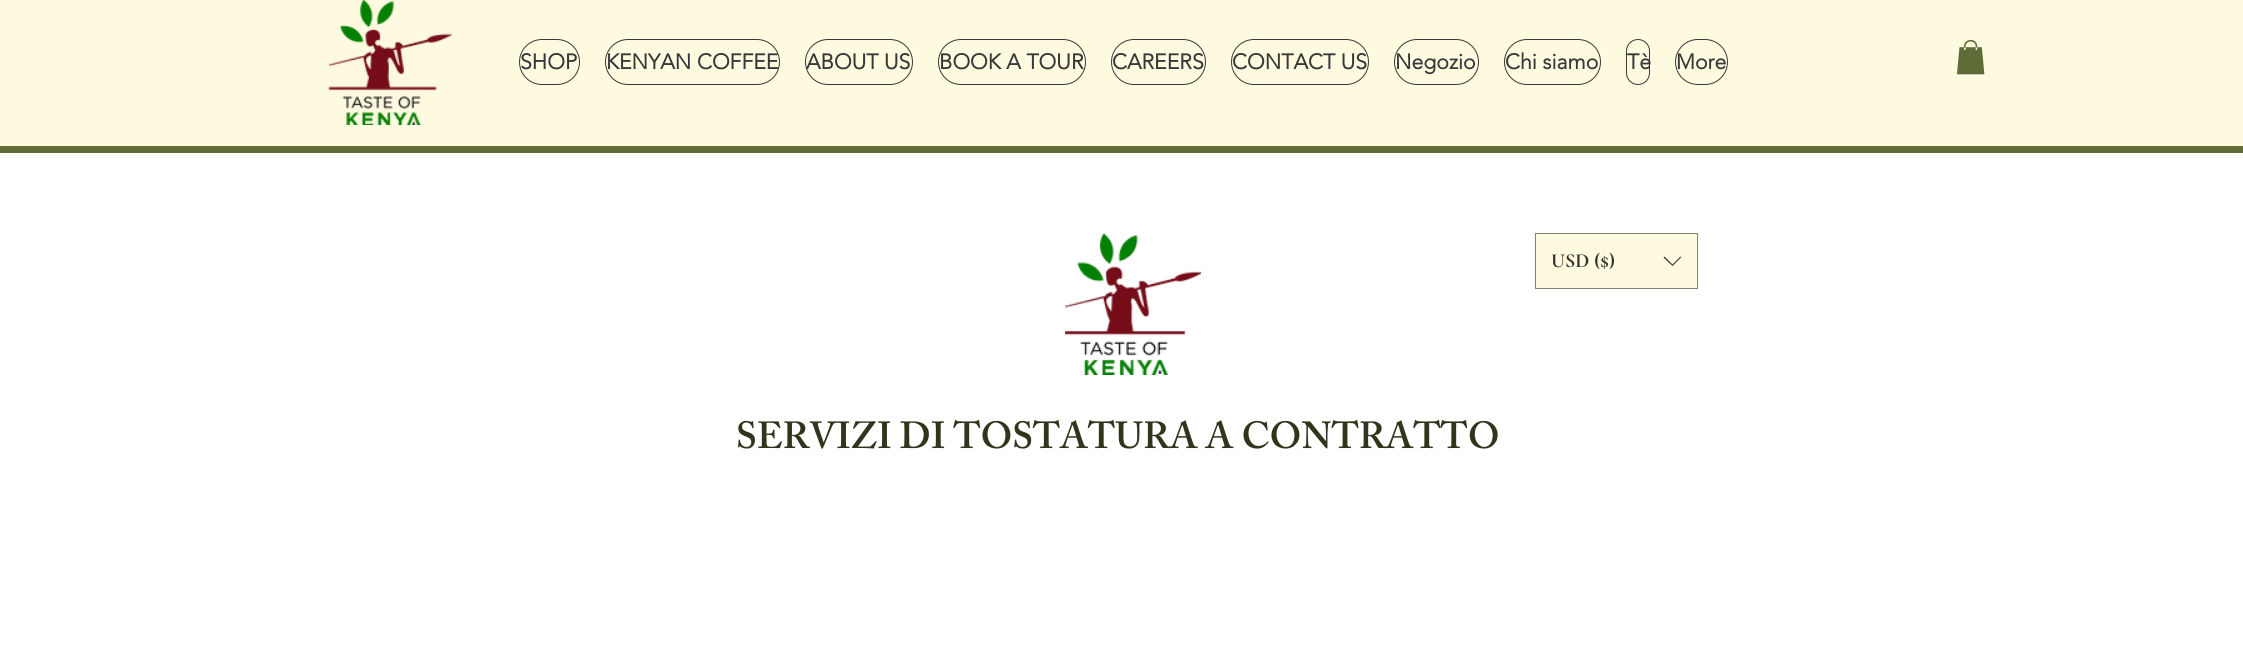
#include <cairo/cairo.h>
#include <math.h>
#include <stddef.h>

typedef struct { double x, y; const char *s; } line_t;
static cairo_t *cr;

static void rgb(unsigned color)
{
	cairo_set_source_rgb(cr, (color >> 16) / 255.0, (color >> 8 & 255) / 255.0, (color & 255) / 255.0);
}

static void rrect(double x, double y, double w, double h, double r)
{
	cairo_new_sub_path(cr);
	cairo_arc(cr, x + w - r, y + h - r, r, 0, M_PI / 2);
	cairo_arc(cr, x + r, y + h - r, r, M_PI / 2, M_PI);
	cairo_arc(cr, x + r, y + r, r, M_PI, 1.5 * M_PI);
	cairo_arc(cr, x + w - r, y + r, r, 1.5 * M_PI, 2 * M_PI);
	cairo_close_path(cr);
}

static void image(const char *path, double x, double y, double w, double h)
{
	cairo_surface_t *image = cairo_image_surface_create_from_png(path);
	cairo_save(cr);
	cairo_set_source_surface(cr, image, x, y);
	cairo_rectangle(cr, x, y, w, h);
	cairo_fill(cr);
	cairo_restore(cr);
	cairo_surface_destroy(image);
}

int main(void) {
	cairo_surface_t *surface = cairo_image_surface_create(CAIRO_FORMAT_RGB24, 2243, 670);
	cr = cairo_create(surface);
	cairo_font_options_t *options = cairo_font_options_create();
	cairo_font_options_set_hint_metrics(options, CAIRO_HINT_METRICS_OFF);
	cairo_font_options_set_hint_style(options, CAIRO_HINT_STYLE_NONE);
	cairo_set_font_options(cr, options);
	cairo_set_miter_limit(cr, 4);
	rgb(0xffffff);
	cairo_paint(cr);
	rgb(0xfefae0);
	cairo_rectangle(cr, 0, 0, 2243, 146);
	cairo_fill(cr);
	rgb(0x606c38);
	cairo_rectangle(cr, 0, 146, 2243, 7);
	cairo_fill(cr);
	image("img/1.png", 328, 0, 125, 125);
	rrect(519.5, 39.5, 60, 45, 22.5);
	rgb(0x383838);
	cairo_set_line_width(cr, 1);
	cairo_stroke(cr);
	rrect(605.5, 39.5, 174, 45, 22.5);
	cairo_stroke(cr);
	rrect(805.5, 39.5, 107, 45, 22.5);
	cairo_stroke(cr);
	rrect(938.5, 39.5, 147, 45, 22.5);
	cairo_stroke(cr);
	rrect(1111.5, 39.5, 94, 45, 22.5);
	cairo_stroke(cr);
	rrect(1231.5, 39.5, 137, 45, 22.5);
	cairo_stroke(cr);
	rrect(1394.5, 39.5, 84, 45, 22.5);
	cairo_stroke(cr);
	rrect(1504.5, 39.5, 96, 45, 22.5);
	cairo_stroke(cr);
	rrect(1626.5, 39.5, 23, 45, 11.5);
	cairo_stroke(cr);
	rrect(1675.5, 39.5, 52, 45, 22.5);
	cairo_stroke(cr);
	image("img/2.png", 1957, 40, 28, 35);
	image("img/3.png", 1065, 233, 137, 142);
	rgb(0xfefae0);
	cairo_rectangle(cr, 1535.5, 233.5, 162, 55);
	cairo_fill_preserve(cr);
	rgb(0x848275);
	cairo_stroke(cr);
	rgb(0x33322d);
	cairo_set_fill_rule(cr, CAIRO_FILL_RULE_EVEN_ODD);
	cairo_new_path(cr);
	cairo_move_to(cr, 1680.5, 256.5);
	cairo_line_to(cr, 1681, 257.5);
	cairo_line_to(cr, 1672.5, 266);
	cairo_line_to(cr, 1663.5, 257.5);
	cairo_line_to(cr, 1664.5, 256.5);
	cairo_line_to(cr, 1672.5, 264.5);
	cairo_close_path(cr);
	cairo_fill(cr);
	cairo_select_font_face(cr, "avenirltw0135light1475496", CAIRO_FONT_SLANT_NORMAL, CAIRO_FONT_WEIGHT_BOLD);
	cairo_set_font_size(cr, 21.25);
	rgb(0x383838);
	{
		static const line_t items[] = {
			{520, 69, "SHOP"},
			{606, 69, "KENYAN COFFEE"},
			{806, 69, "ABOUT US"},
			{939, 69, "BOOK A TOUR"},
			{1112, 69, "CAREERS"},
			{1232, 69, "CONTACT US"},
			{1395, 69, "Negozio"},
			{1505, 69, "Chi siamo"},
			{1627, 69, "Tè"},
			{1676, 69, "More"},
		};
		for (size_t i = 0; i < sizeof items / sizeof *items; i++) {
			cairo_move_to(cr, items[i].x, items[i].y);
			cairo_show_text(cr, items[i].s);
		}
	}
	cairo_select_font_face(cr, "Cormorant Garamond", CAIRO_FONT_SLANT_NORMAL, CAIRO_FONT_WEIGHT_BOLD);
	cairo_set_font_size(cr, 20);
	rgb(0x33322d);
	cairo_move_to(cr, 1551, 267);
	cairo_show_text(cr, "USD ($)");
	cairo_select_font_face(cr, "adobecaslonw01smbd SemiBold", CAIRO_FONT_SLANT_NORMAL, CAIRO_FONT_WEIGHT_NORMAL);
	cairo_set_font_size(cr, 37.5);
	rgb(0x30361c);
	cairo_move_to(cr, 736, 448);
	cairo_show_text(cr, "SERVIZI DI TOSTATURA A CONTRATTO");
	cairo_surface_write_to_png(surface, "page.png");
	cairo_font_options_destroy(options);
	cairo_destroy(cr);
	cairo_surface_destroy(surface);
	return 0;
}
